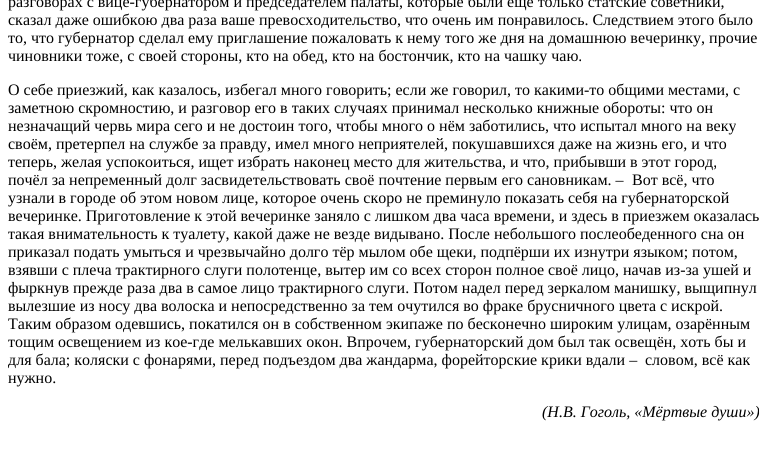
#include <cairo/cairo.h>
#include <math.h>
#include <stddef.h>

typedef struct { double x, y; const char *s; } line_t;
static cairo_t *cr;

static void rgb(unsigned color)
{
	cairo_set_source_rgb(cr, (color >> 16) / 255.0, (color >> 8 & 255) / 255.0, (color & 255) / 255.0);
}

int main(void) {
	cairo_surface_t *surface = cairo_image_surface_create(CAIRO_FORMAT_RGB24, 768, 457);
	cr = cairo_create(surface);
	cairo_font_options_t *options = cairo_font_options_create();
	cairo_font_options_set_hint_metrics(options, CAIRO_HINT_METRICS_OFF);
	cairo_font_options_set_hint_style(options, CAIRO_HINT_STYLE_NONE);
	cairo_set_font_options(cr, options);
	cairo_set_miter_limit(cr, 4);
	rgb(0xffffff);
	cairo_paint(cr);
	cairo_select_font_face(cr, "Liberation Serif", CAIRO_FONT_SLANT_NORMAL, CAIRO_FONT_WEIGHT_NORMAL);
	cairo_set_font_size(cr, 16);
	rgb(0x000000);
	{
		static const line_t items[] = {
			{8, 7, "разговорах с вице-губернатором и председателем палаты, которые были ещё только статские советники,"},
			{8, 25, "сказал даже ошибкою два раза ваше превосходительство, что очень им понравилось. Следствием этого было"},
			{8, 43, "то, что губернатор сделал ему приглашение пожаловать к нему того же дня на домашнюю вечеринку, прочие"},
			{8, 61, "чиновники тоже, с своей стороны, кто на обед, кто на бостончик, кто на чашку чаю."},
			{8, 95, "О себе приезжий, как казалось, избегал много говорить; если же говорил, то какими-то общими местами, с"},
			{8, 113, "заметною скромностию, и разговор его в таких случаях принимал несколько книжные обороты: что он"},
			{8, 131, "незначащий червь мира сего и не достоин того, чтобы много о нём заботились, что испытал много на веку"},
			{8, 149, "своём, претерпел на службе за правду, имел много неприятелей, покушавшихся даже на жизнь его, и что"},
			{8, 167, "теперь, желая успокоиться, ищет избрать наконец место для жительства, и что, прибывши в этот город,"},
			{8, 185, "почёл за непременный долг засвидетельствовать своё почтение первым его сановникам. –"},
			{632, 185, "Вот всё, что"},
			{8, 203, "узнали в городе об этом новом лице, которое очень скоро не преминуло показать себя на губернаторской"},
			{8, 221, "вечеринке. Приготовление к этой вечеринке заняло с лишком два часа времени, и здесь в приезжем оказалась"},
			{8, 239, "такая внимательность к туалету, какой даже не везде видывано. После небольшого послеобеденного сна он"},
			{8, 257, "приказал подать умыться и чрезвычайно долго тёр мылом обе щеки, подпёрши их изнутри языком; потом,"},
			{8, 275, "взявши с плеча трактирного слуги полотенце, вытер им со всех сторон полное своё лицо, начав из-за ушей и"},
			{8, 293, "фыркнув прежде раза два в самое лицо трактирного слуги. Потом надел перед зеркалом манишку, выщипнул"},
			{8, 311, "вылезшие из носу два волоска и непосредственно за тем очутился во фраке брусничного цвета с искрой."},
			{8, 329, "Таким образом одевшись, покатился он в собственном экипаже по бесконечно широким улицам, озарённым"},
			{8, 347, "тощим освещением из кое-где мелькавших окон. Впрочем, губернаторский дом был так освещён, хоть бы и"},
			{8, 365, "для бала; коляски с фонарями, перед подъездом два жандарма, форейторские крики вдали –"},
			{645, 365, "словом, всё как"},
			{8, 383, "нужно."},
		};
		for (size_t i = 0; i < sizeof items / sizeof *items; i++) {
			cairo_move_to(cr, items[i].x, items[i].y);
			cairo_show_text(cr, items[i].s);
		}
	}
	cairo_select_font_face(cr, "Liberation Serif", CAIRO_FONT_SLANT_ITALIC, CAIRO_FONT_WEIGHT_NORMAL);
	cairo_move_to(cr, 542, 417);
	cairo_show_text(cr, "(Н.В. Гоголь, «Мёртвые души»)");
	cairo_surface_write_to_png(surface, "page.png");
	cairo_font_options_destroy(options);
	cairo_destroy(cr);
	cairo_surface_destroy(surface);
	return 0;
}
